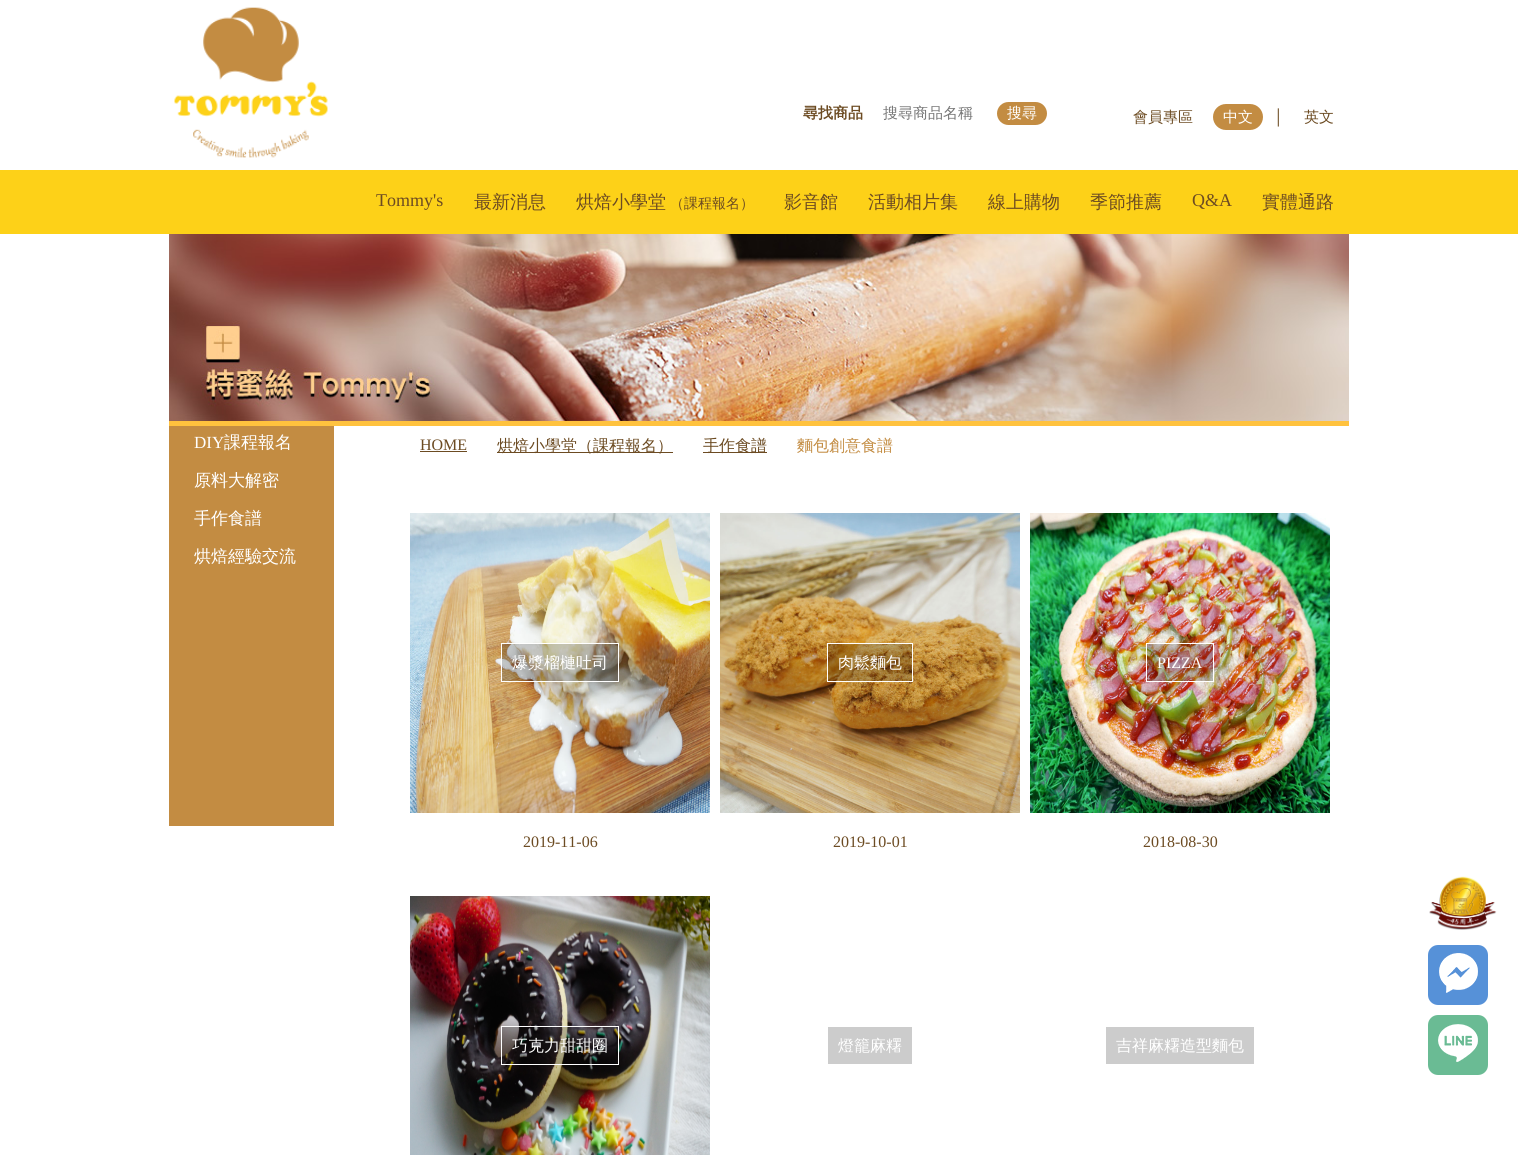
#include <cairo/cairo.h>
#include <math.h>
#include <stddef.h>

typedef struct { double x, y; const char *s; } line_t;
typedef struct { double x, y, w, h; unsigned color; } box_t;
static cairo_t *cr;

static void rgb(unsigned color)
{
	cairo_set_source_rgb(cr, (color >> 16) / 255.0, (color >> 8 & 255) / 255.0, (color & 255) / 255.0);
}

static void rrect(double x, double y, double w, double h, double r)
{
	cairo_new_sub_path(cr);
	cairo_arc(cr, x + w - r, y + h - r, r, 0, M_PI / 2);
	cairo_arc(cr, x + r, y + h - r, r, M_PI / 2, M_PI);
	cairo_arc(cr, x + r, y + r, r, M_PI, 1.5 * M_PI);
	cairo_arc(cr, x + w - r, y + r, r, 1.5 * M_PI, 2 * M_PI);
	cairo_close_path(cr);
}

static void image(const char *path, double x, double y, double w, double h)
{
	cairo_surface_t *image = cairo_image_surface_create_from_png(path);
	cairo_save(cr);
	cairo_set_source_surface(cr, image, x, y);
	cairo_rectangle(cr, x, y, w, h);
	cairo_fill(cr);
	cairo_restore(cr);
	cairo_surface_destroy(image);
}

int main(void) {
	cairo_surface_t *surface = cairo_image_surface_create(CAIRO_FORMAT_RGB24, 1518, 1155);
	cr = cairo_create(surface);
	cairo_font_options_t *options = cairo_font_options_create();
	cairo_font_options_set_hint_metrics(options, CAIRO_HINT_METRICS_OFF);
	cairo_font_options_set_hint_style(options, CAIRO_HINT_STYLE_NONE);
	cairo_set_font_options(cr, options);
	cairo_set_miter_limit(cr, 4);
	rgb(0xffffff);
	cairo_paint(cr);
	image("img/1.png", 174, 7, 154, 151);
	rgb(0xc38c42);
	rrect(997, 102, 50, 23, 11.5);
	cairo_fill(cr);
	rrect(1213, 104, 50, 26, 13);
	cairo_fill(cr);
	rgb(0xfdd118);
	cairo_rectangle(cr, 0, 170, 1518, 64);
	cairo_fill(cr);
	rgb(0xffc23e);
	cairo_rectangle(cr, 169, 421, 1180, 5);
	cairo_fill(cr);
	image("img/2.png", 169, 234, 1180, 187);
	{
		static const box_t items[] = {
			{169, 426, 165, 400, 0xc38c42},
			{420, 451, 47, 1, 0x6c4b22},
			{497, 452, 176, 1, 0x6c4b22},
			{703, 452, 64, 1, 0x6c4b22},
		};
		for (size_t i = 0; i < sizeof items / sizeof *items; i++) {
			rgb(items[i].color);
			cairo_rectangle(cr, items[i].x, items[i].y, items[i].w, items[i].h);
			cairo_fill(cr);
		}
	}
	image("img/3.png", 410, 513, 300, 300);
	cairo_set_source_rgba(cr, 0, 0, 0, 0.2);
	cairo_rectangle(cr, 501.5, 643.5, 117, 38);
	cairo_fill_preserve(cr);
	rgb(0xffffff);
	cairo_set_line_width(cr, 1);
	cairo_stroke(cr);
	image("img/4.png", 720, 513, 300, 300);
	cairo_set_source_rgba(cr, 0, 0, 0, 0.2);
	cairo_rectangle(cr, 827.5, 643.5, 85, 38);
	cairo_fill_preserve(cr);
	rgb(0xffffff);
	cairo_stroke(cr);
	image("img/5.png", 1030, 513, 300, 300);
	cairo_set_source_rgba(cr, 0, 0, 0, 0.2);
	cairo_rectangle(cr, 1146.5, 643.5, 67, 38);
	cairo_fill_preserve(cr);
	rgb(0xffffff);
	cairo_stroke(cr);
	image("img/6.png", 410, 896, 300, 259);
	cairo_set_source_rgba(cr, 0, 0, 0, 0.2);
	cairo_rectangle(cr, 501.5, 1026.5, 117, 38);
	cairo_fill_preserve(cr);
	rgb(0xffffff);
	cairo_stroke(cr);
	rgb(0xcccccc);
	cairo_rectangle(cr, 828, 1027, 84, 37);
	cairo_fill(cr);
	cairo_rectangle(cr, 1106, 1027, 148, 37);
	cairo_fill(cr);
	image("img/7.png", 1429, 876, 68, 54);
	rgb(0x5691d8);
	rrect(1428, 945, 60, 60, 10);
	cairo_fill(cr);
	image("img/8.png", 1439, 953, 39, 40);
	rgb(0x6abb94);
	rrect(1428, 1015, 60, 60, 10);
	cairo_fill(cr);
	image("img/9.png", 1438, 1024, 40, 38);
	cairo_select_font_face(cr, "WenQuanYi Zen Hei", CAIRO_FONT_SLANT_NORMAL, CAIRO_FONT_WEIGHT_BOLD);
	cairo_set_font_size(cr, 15);
	rgb(0x6c4b22);
	cairo_move_to(cr, 803, 118);
	cairo_show_text(cr, "尋找商品");
	cairo_select_font_face(cr, "WenQuanYi Zen Hei Medium", CAIRO_FONT_SLANT_NORMAL, CAIRO_FONT_WEIGHT_NORMAL);
	rgb(0x757575);
	cairo_move_to(cr, 883, 118);
	cairo_show_text(cr, "搜尋商品名稱");
	rgb(0xffffff);
	cairo_move_to(cr, 1007, 118);
	cairo_show_text(cr, "搜尋");
	rgb(0x6c4b22);
	cairo_move_to(cr, 1133, 122);
	cairo_show_text(cr, "會員專區");
	rgb(0xffffff);
	cairo_move_to(cr, 1223, 122);
	cairo_show_text(cr, "中文");
	cairo_select_font_face(cr, "Liberation Serif", CAIRO_FONT_SLANT_NORMAL, CAIRO_FONT_WEIGHT_NORMAL);
	rgb(0x6c4b22);
	cairo_move_to(cr, 1273, 122);
	cairo_show_text(cr, "│");
	cairo_select_font_face(cr, "WenQuanYi Zen Hei Medium", CAIRO_FONT_SLANT_NORMAL, CAIRO_FONT_WEIGHT_NORMAL);
	cairo_move_to(cr, 1304, 122);
	cairo_show_text(cr, "英文");
	cairo_select_font_face(cr, "Liberation Serif", CAIRO_FONT_SLANT_NORMAL, CAIRO_FONT_WEIGHT_NORMAL);
	cairo_set_font_size(cr, 18);
	cairo_move_to(cr, 376, 206);
	cairo_show_text(cr, "Tommy's");
	cairo_select_font_face(cr, "WenQuanYi Zen Hei Medium", CAIRO_FONT_SLANT_NORMAL, CAIRO_FONT_WEIGHT_NORMAL);
	cairo_move_to(cr, 474, 208);
	cairo_show_text(cr, "最新消息");
	cairo_move_to(cr, 576, 208);
	cairo_show_text(cr, "烘焙小學堂");
	cairo_set_font_size(cr, 14);
	cairo_move_to(cr, 670, 208);
	cairo_show_text(cr, "（課程報名）");
	cairo_set_font_size(cr, 18);
	{
		static const line_t items[] = {
			{784, 208, "影音館"},
			{868, 208, "活動相片集"},
			{988, 208, "線上購物"},
			{1090, 208, "季節推薦"},
		};
		for (size_t i = 0; i < sizeof items / sizeof *items; i++) {
			cairo_move_to(cr, items[i].x, items[i].y);
			cairo_show_text(cr, items[i].s);
		}
	}
	cairo_select_font_face(cr, "Liberation Serif", CAIRO_FONT_SLANT_NORMAL, CAIRO_FONT_WEIGHT_NORMAL);
	cairo_move_to(cr, 1192, 206);
	cairo_show_text(cr, "Q&A");
	cairo_select_font_face(cr, "WenQuanYi Zen Hei Medium", CAIRO_FONT_SLANT_NORMAL, CAIRO_FONT_WEIGHT_NORMAL);
	cairo_move_to(cr, 1262, 208);
	cairo_show_text(cr, "實體通路");
	cairo_select_font_face(cr, "Liberation Serif", CAIRO_FONT_SLANT_NORMAL, CAIRO_FONT_WEIGHT_NORMAL);
	cairo_set_font_size(cr, 17);
	rgb(0xffffff);
	cairo_move_to(cr, 194, 448);
	cairo_show_text(cr, "DIY");
	cairo_select_font_face(cr, "WenQuanYi Zen Hei Medium", CAIRO_FONT_SLANT_NORMAL, CAIRO_FONT_WEIGHT_NORMAL);
	{
		static const line_t items[] = {
			{224, 448, "課程報名"},
			{194, 486, "原料大解密"},
			{194, 524, "手作食譜"},
			{194, 562, "烘焙經驗交流"},
		};
		for (size_t i = 0; i < sizeof items / sizeof *items; i++) {
			cairo_move_to(cr, items[i].x, items[i].y);
			cairo_show_text(cr, items[i].s);
		}
	}
	cairo_select_font_face(cr, "Liberation Serif", CAIRO_FONT_SLANT_NORMAL, CAIRO_FONT_WEIGHT_NORMAL);
	cairo_set_font_size(cr, 16);
	rgb(0x6c4b22);
	cairo_move_to(cr, 420, 450);
	cairo_show_text(cr, "HOME");
	cairo_select_font_face(cr, "WenQuanYi Zen Hei Medium", CAIRO_FONT_SLANT_NORMAL, CAIRO_FONT_WEIGHT_NORMAL);
	cairo_move_to(cr, 497, 451);
	cairo_show_text(cr, "烘焙小學堂（課程報名）");
	cairo_move_to(cr, 703, 451);
	cairo_show_text(cr, "手作食譜");
	rgb(0xc38c42);
	cairo_move_to(cr, 797, 451);
	cairo_show_text(cr, "麵包創意食譜");
	rgb(0xffffff);
	cairo_move_to(cr, 512, 668);
	cairo_show_text(cr, "爆漿榴槤吐司");
	cairo_select_font_face(cr, "Liberation Serif", CAIRO_FONT_SLANT_NORMAL, CAIRO_FONT_WEIGHT_NORMAL);
	rgb(0x6c4b22);
	cairo_move_to(cr, 523, 847);
	cairo_show_text(cr, "2019-11-06");
	cairo_select_font_face(cr, "WenQuanYi Zen Hei Medium", CAIRO_FONT_SLANT_NORMAL, CAIRO_FONT_WEIGHT_NORMAL);
	rgb(0xffffff);
	cairo_move_to(cr, 838, 668);
	cairo_show_text(cr, "肉鬆麵包");
	cairo_select_font_face(cr, "Liberation Serif", CAIRO_FONT_SLANT_NORMAL, CAIRO_FONT_WEIGHT_NORMAL);
	rgb(0x6c4b22);
	cairo_move_to(cr, 833, 847);
	cairo_show_text(cr, "2019-10-01");
	rgb(0xffffff);
	cairo_move_to(cr, 1157, 668);
	cairo_show_text(cr, "PIZZA");
	rgb(0x6c4b22);
	cairo_move_to(cr, 1143, 847);
	cairo_show_text(cr, "2018-08-30");
	cairo_select_font_face(cr, "WenQuanYi Zen Hei Medium", CAIRO_FONT_SLANT_NORMAL, CAIRO_FONT_WEIGHT_NORMAL);
	rgb(0xffffff);
	{
		static const line_t items[] = {
			{512, 1051, "巧克力甜甜圈"},
			{838, 1051, "燈籠麻糬"},
			{1116, 1051, "吉祥麻糬造型麵包"},
		};
		for (size_t i = 0; i < sizeof items / sizeof *items; i++) {
			cairo_move_to(cr, items[i].x, items[i].y);
			cairo_show_text(cr, items[i].s);
		}
	}
	cairo_surface_write_to_png(surface, "page.png");
	cairo_font_options_destroy(options);
	cairo_destroy(cr);
	cairo_surface_destroy(surface);
	return 0;
}
